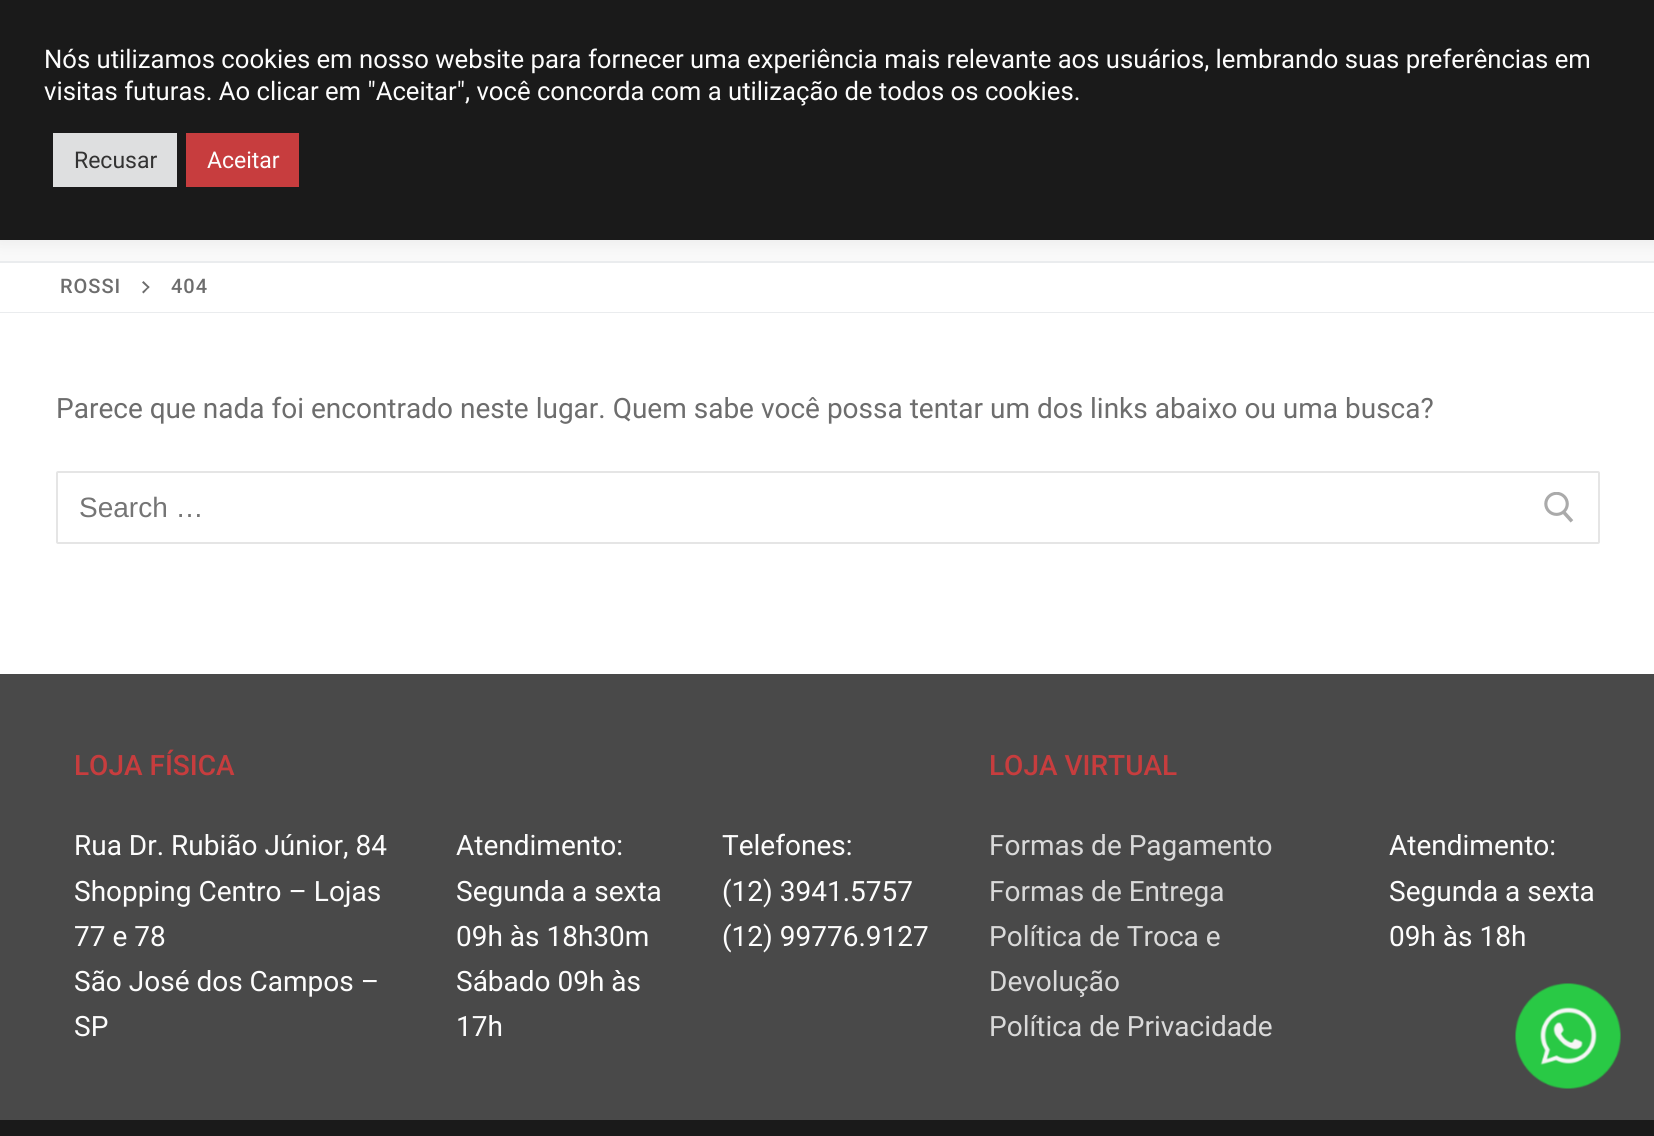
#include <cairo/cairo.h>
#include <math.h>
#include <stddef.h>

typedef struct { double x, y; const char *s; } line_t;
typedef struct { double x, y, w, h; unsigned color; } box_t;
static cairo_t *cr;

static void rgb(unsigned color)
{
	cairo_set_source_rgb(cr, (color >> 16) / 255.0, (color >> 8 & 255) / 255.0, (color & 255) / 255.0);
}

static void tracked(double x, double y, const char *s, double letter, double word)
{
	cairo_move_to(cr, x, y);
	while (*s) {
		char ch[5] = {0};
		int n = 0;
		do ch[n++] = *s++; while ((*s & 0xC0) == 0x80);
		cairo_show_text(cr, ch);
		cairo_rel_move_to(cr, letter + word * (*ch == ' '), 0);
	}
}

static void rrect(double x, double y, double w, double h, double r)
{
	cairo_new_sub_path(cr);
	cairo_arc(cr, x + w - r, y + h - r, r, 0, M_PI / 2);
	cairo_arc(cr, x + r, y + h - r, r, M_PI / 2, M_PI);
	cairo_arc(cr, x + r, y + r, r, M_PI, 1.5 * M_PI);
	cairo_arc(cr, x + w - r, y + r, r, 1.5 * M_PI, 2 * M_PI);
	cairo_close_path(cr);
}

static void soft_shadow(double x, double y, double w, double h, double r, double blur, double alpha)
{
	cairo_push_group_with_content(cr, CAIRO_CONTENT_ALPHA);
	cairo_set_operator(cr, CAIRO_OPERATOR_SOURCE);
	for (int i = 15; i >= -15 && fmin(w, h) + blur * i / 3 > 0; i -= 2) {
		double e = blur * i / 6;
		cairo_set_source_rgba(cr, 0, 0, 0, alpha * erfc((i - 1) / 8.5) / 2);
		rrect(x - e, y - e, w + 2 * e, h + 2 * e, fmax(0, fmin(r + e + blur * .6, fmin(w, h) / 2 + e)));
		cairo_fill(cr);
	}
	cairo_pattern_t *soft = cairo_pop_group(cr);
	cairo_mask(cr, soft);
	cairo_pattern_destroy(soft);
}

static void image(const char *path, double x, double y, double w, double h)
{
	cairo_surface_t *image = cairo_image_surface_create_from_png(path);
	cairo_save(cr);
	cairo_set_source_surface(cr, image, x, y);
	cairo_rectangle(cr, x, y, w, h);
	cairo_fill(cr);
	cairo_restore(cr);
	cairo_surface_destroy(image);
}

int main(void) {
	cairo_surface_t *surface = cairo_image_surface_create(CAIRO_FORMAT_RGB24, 1654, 1136);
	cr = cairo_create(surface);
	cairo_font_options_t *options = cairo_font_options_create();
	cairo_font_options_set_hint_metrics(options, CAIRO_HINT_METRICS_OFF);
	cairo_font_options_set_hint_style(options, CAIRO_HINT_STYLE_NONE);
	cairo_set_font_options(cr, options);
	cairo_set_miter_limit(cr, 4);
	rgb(0xffffff);
	cairo_paint(cr);
	rgb(0xf9f9f9);
	cairo_rectangle(cr, 0, 240, 1654, 21);
	cairo_fill(cr);
	rgb(0xeaecee);
	cairo_rectangle(cr, 0, 261, 1654, 2);
	cairo_fill(cr);
	rgb(0xacabab);
	soft_shadow(0, -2, 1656, 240, 0, 9, 0.3);
	{
		static const box_t items[] = {
			{0, 0, 1654, 240, 0x1a1a1a},
			{53, 133, 124, 54, 0xdedfe0},
			{186, 133, 113, 54, 0xc73d3e},
			{0, 312, 1654, 1, 0xeaecee},
		};
		for (size_t i = 0; i < sizeof items / sizeof *items; i++) {
			rgb(items[i].color);
			cairo_rectangle(cr, items[i].x, items[i].y, items[i].w, items[i].h);
			cairo_fill(cr);
		}
	}
	rgb(0x6d6d6d);
	cairo_new_path(cr);
	cairo_move_to(cr, 149.5, 287);
	cairo_line_to(cr, 143.5, 293.5);
	cairo_line_to(cr, 142, 292);
	cairo_line_to(cr, 148.5, 286);
	cairo_close_path(cr);
	cairo_fill(cr);
	cairo_new_path(cr);
	cairo_move_to(cr, 149.5, 287);
	cairo_line_to(cr, 148.5, 288.5);
	cairo_line_to(cr, 142, 282.5);
	cairo_line_to(cr, 143.5, 281);
	cairo_close_path(cr);
	cairo_fill(cr);
	rrect(57, 472, 1542, 71, 1);
	rgb(0xe5e5e5);
	cairo_stroke(cr);
	image("img/1.png", 1544, 492, 30, 31);
	rgb(0x494949);
	cairo_rectangle(cr, 0, 674, 1654, 446);
	cairo_fill(cr);
	rgb(0x1a1a1a);
	cairo_rectangle(cr, 0, 1120, 1654, 16);
	cairo_fill(cr);
	image("img/2.png", 1515, 983, 106, 106);
	cairo_select_font_face(cr, "Roboto", CAIRO_FONT_SLANT_NORMAL, CAIRO_FONT_WEIGHT_NORMAL);
	cairo_set_font_size(cr, 25.67);
	rgb(0xfdfdfd);
	cairo_move_to(cr, 44, 68);
	cairo_show_text(cr, "Nós utilizamos cookies em nosso website para fornecer uma experiência mais relevante aos usuários, lembrando suas preferências em");
	cairo_move_to(cr, 44, 100);
	cairo_show_text(cr, "visitas futuras. Ao clicar em \"Aceitar\", você concorda com a utilização de todos os cookies.");
	cairo_set_font_size(cr, 23);
	rgb(0x333333);
	cairo_move_to(cr, 74, 168);
	cairo_show_text(cr, "Recusar");
	rgb(0xfdfdfd);
	cairo_move_to(cr, 207, 168);
	cairo_show_text(cr, "Aceitar");
	cairo_select_font_face(cr, "Roboto Medium", CAIRO_FONT_SLANT_NORMAL, CAIRO_FONT_WEIGHT_NORMAL);
	cairo_set_font_size(cr, 20);
	rgb(0x6d6d6d);
	tracked(60, 293, "ROSSI", 1, 0);
	tracked(171, 293, "404", 1, 0);
	cairo_select_font_face(cr, "Roboto", CAIRO_FONT_SLANT_NORMAL, CAIRO_FONT_WEIGHT_NORMAL);
	cairo_set_font_size(cr, 28);
	cairo_move_to(cr, 56, 418);
	cairo_show_text(cr, "Parece que nada foi encontrado neste lugar. Quem sabe você possa tentar um dos links abaixo ou uma busca?");
	cairo_select_font_face(cr, "Liberation Sans", CAIRO_FONT_SLANT_NORMAL, CAIRO_FONT_WEIGHT_NORMAL);
	rgb(0x757575);
	cairo_move_to(cr, 79, 517);
	cairo_show_text(cr, "Search …");
	cairo_select_font_face(cr, "Roboto Medium", CAIRO_FONT_SLANT_NORMAL, CAIRO_FONT_WEIGHT_NORMAL);
	rgb(0xc73d3e);
	cairo_move_to(cr, 74, 775);
	cairo_show_text(cr, "LOJA FÍSICA");
	cairo_select_font_face(cr, "Roboto", CAIRO_FONT_SLANT_NORMAL, CAIRO_FONT_WEIGHT_NORMAL);
	rgb(0xfdfdfd);
	{
		static const line_t items[] = {
			{74, 855, "Rua Dr. Rubião Júnior, 84"},
			{74, 901, "Shopping Centro – Lojas"},
			{74, 946, "77 e 78"},
			{74, 991, "São José dos Campos –"},
			{74, 1036, "SP"},
			{456, 855, "Atendimento:"},
			{456, 901, "Segunda a sexta"},
			{456, 946, "09h às 18h30m"},
			{456, 991, "Sábado 09h às"},
			{456, 1036, "17h"},
			{722, 855, "Telefones:"},
			{722, 901, "(12) 3941.5757"},
			{722, 946, "(12) 99776.9127"},
		};
		for (size_t i = 0; i < sizeof items / sizeof *items; i++) {
			cairo_move_to(cr, items[i].x, items[i].y);
			cairo_show_text(cr, items[i].s);
		}
	}
	cairo_select_font_face(cr, "Roboto Medium", CAIRO_FONT_SLANT_NORMAL, CAIRO_FONT_WEIGHT_NORMAL);
	rgb(0xc73d3e);
	cairo_move_to(cr, 989, 775);
	cairo_show_text(cr, "LOJA VIRTUAL");
	cairo_select_font_face(cr, "Roboto", CAIRO_FONT_SLANT_NORMAL, CAIRO_FONT_WEIGHT_NORMAL);
	rgb(0xd9d9d9);
	{
		static const line_t items[] = {
			{989, 855, "Formas de Pagamento"},
			{989, 901, "Formas de Entrega"},
			{989, 946, "Política de Troca e"},
			{989, 991, "Devolução"},
			{989, 1036, "Política de Privacidade"},
		};
		for (size_t i = 0; i < sizeof items / sizeof *items; i++) {
			cairo_move_to(cr, items[i].x, items[i].y);
			cairo_show_text(cr, items[i].s);
		}
	}
	rgb(0xfdfdfd);
	{
		static const line_t items[] = {
			{1389, 855, "Atendimento:"},
			{1389, 901, "Segunda a sexta"},
			{1389, 946, "09h às 18h"},
		};
		for (size_t i = 0; i < sizeof items / sizeof *items; i++) {
			cairo_move_to(cr, items[i].x, items[i].y);
			cairo_show_text(cr, items[i].s);
		}
	}
	cairo_surface_write_to_png(surface, "page.png");
	cairo_font_options_destroy(options);
	cairo_destroy(cr);
	cairo_surface_destroy(surface);
	return 0;
}
